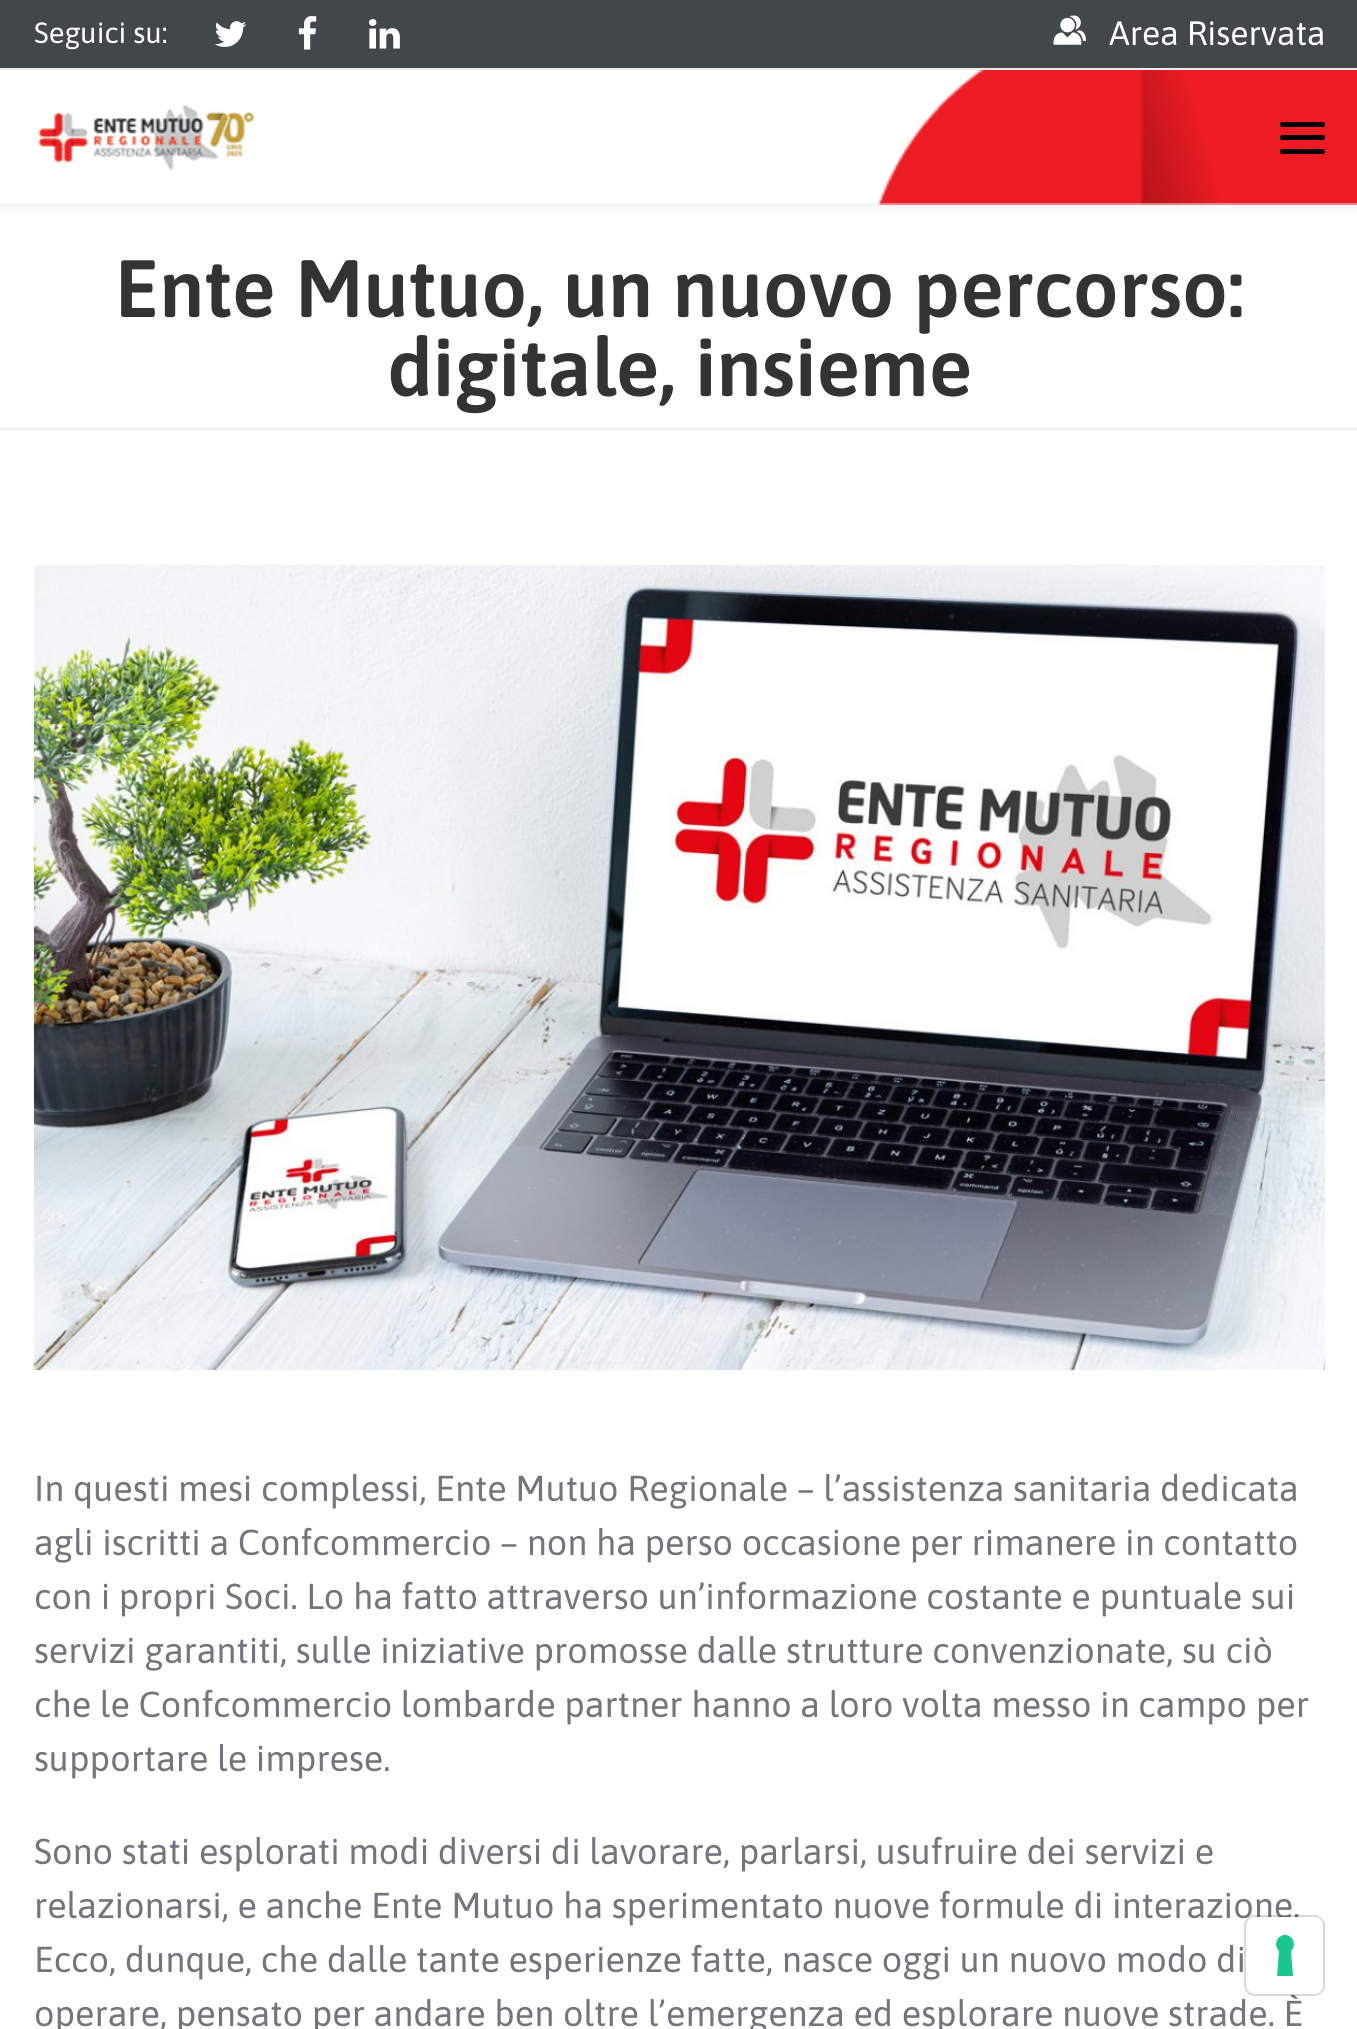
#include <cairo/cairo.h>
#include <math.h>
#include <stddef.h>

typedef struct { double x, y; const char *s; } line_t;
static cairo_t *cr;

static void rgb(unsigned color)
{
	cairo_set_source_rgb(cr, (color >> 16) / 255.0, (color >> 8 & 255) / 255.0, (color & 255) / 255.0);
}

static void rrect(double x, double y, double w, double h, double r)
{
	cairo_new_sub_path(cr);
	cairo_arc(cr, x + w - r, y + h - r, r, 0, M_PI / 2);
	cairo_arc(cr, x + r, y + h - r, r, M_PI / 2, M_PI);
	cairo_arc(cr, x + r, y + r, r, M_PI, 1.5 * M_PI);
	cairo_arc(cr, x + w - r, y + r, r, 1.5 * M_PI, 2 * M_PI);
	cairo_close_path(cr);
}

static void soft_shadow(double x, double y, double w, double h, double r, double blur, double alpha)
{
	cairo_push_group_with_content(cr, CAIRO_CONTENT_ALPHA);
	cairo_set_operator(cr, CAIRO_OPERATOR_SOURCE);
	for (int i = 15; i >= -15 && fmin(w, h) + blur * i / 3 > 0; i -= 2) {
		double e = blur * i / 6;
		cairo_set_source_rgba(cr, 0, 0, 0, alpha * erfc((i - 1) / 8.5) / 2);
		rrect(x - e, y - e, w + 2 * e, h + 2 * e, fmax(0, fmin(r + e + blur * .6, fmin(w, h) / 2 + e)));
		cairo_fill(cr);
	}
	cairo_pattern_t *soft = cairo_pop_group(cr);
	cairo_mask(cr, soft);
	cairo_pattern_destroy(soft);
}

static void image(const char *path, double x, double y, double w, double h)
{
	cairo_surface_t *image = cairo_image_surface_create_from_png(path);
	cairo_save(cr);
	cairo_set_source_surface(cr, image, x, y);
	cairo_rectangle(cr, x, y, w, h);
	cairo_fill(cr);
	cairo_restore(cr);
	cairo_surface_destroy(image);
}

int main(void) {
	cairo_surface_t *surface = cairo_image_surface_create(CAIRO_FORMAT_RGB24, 1357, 2029);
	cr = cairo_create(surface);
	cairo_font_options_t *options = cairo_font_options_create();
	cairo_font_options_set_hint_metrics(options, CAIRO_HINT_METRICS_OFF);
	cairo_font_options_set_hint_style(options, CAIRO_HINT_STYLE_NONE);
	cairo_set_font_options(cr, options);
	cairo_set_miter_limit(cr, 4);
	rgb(0xffffff);
	cairo_paint(cr);
	rgb(0x000000);
	soft_shadow(0, 70, 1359, 135, 0, 9, 0.07);
	rgb(0x42474a);
	cairo_rectangle(cr, 0, 0, 1357, 68);
	cairo_fill(cr);
	rgb(0xebebeb);
	cairo_rectangle(cr, 0, 68, 1357, 2);
	cairo_fill(cr);
	image("img/1.png", 214, 21, 33, 26);
	image("img/2.png", 298, 16, 19, 34);
	image("img/3.png", 369, 19, 31, 30);
	image("img/4.png", 1053, 15, 34, 30);
	rgb(0xed1c24);
	cairo_rectangle(cr, 1219, 70, 138, 135);
	cairo_fill(cr);
	image("img/5.png", 0, 70, 1219, 135);
	cairo_set_source_rgba(cr, 0.922, 0.922, 0.922, 0.5);
	cairo_rectangle(cr, 0, 203, 1357, 2);
	cairo_fill(cr);
	image("img/6.png", 37, 105, 218, 66);
	rgb(0x000000);
	rrect(1280, 135, 45, 5, 2.5);
	cairo_fill(cr);
	rrect(1280, 122, 45, 5, 2.5);
	cairo_fill(cr);
	rrect(1280, 149, 45, 5, 2.5);
	cairo_fill(cr);
	rgb(0xecf0f1);
	cairo_rectangle(cr, 0, 428, 1357, 2);
	cairo_fill(cr);
	image("img/7.png", 33, 565, 1293, 806);
	cairo_select_font_face(cr, "Asap", CAIRO_FONT_SLANT_NORMAL, CAIRO_FONT_WEIGHT_NORMAL);
	cairo_set_font_size(cr, 29.25);
	rgb(0xffffff);
	cairo_move_to(cr, 34, 43);
	cairo_show_text(cr, "Seguici su:");
	cairo_set_font_size(cr, 33.75);
	cairo_move_to(cr, 1109, 45);
	cairo_show_text(cr, "Area Riservata");
	cairo_select_font_face(cr, "Asap SemiBold", CAIRO_FONT_SLANT_NORMAL, CAIRO_FONT_WEIGHT_NORMAL);
	cairo_set_font_size(cr, 81);
	rgb(0x333333);
	cairo_move_to(cr, 115, 317);
	cairo_show_text(cr, "Ente Mutuo, un nuovo percorso:");
	cairo_move_to(cr, 387, 396);
	cairo_show_text(cr, "digitale, insieme");
	cairo_select_font_face(cr, "Asap", CAIRO_FONT_SLANT_NORMAL, CAIRO_FONT_WEIGHT_NORMAL);
	cairo_set_font_size(cr, 36);
	rgb(0x72757d);
	{
		static const line_t items[] = {
			{34, 1501, "In questi mesi complessi, Ente Mutuo Regionale – l’assistenza sanitaria dedicata"},
			{34, 1555, "agli iscritti a Confcommercio – non ha perso occasione per rimanere in contatto"},
			{34, 1609, "con i propri Soci. Lo ha fatto attraverso un’informazione costante e puntuale sui"},
			{34, 1663, "servizi garantiti, sulle iniziative promosse dalle strutture convenzionate, su ciò"},
			{34, 1717, "che le Confcommercio lombarde partner hanno a loro volta messo in campo per"},
			{34, 1771, "supportare le imprese."},
			{34, 1864, "Sono stati esplorati modi diversi di lavorare, parlarsi, usufruire dei servizi e"},
			{34, 1918, "relazionarsi, e anche Ente Mutuo ha sperimentato nuove formule di interazione."},
			{34, 1972, "Ecco, dunque, che dalle tante esperienze fatte, nasce oggi un nuovo modo di"},
			{34, 2026, "operare, pensato per andare ben oltre l’emergenza ed esplorare nuove strade. È"},
		};
		for (size_t i = 0; i < sizeof items / sizeof *items; i++) {
			cairo_move_to(cr, items[i].x, items[i].y);
			cairo_show_text(cr, items[i].s);
		}
	}
	rrect(1245, 1916, 79, 79, 10);
	cairo_set_source_rgba(cr, 0, 0, 0, 0.15);
	cairo_stroke(cr);
	rgb(0xffffff);
	rrect(1247, 1917, 76, 77, 9);
	cairo_fill(cr);
	rgb(0x1cc691);
	cairo_set_fill_rule(cr, CAIRO_FILL_RULE_EVEN_ODD);
	cairo_new_path(cr);
	cairo_move_to(cr, 1285, 1935);
	cairo_curve_to(cr, 1293, 1935, 1297, 1945, 1291, 1951);
	cairo_line_to(cr, 1293, 1976);
	cairo_line_to(cr, 1277, 1976);
	cairo_line_to(cr, 1279, 1951);
	cairo_curve_to(cr, 1273, 1945, 1277, 1935, 1285, 1935);
	cairo_close_path(cr);
	cairo_fill(cr);
	cairo_surface_write_to_png(surface, "page.png");
	cairo_font_options_destroy(options);
	cairo_destroy(cr);
	cairo_surface_destroy(surface);
	return 0;
}
